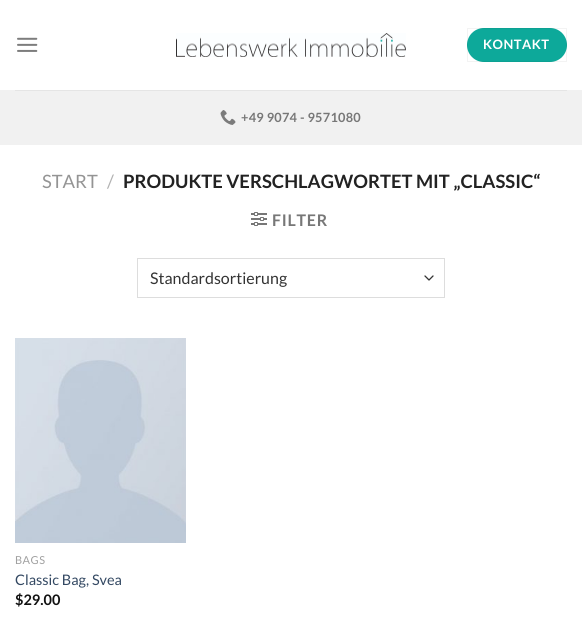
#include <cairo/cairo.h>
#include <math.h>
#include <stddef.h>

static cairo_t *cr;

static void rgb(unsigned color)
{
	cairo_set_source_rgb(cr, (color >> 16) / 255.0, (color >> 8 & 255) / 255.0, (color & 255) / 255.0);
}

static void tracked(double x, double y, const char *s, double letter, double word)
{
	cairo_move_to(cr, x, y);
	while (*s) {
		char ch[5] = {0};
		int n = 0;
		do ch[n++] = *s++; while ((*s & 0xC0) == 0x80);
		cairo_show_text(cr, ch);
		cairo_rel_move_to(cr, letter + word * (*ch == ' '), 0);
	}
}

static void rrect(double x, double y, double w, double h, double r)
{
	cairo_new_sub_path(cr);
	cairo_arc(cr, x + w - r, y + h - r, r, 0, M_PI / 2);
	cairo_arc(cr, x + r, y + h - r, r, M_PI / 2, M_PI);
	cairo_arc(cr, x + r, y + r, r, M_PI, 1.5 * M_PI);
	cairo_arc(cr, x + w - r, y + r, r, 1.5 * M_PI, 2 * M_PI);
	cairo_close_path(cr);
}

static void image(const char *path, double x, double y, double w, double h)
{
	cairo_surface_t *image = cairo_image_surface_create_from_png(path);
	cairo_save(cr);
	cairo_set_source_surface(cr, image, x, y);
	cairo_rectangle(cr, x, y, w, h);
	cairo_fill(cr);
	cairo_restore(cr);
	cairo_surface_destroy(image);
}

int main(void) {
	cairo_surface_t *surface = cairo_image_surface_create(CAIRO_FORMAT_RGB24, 582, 637);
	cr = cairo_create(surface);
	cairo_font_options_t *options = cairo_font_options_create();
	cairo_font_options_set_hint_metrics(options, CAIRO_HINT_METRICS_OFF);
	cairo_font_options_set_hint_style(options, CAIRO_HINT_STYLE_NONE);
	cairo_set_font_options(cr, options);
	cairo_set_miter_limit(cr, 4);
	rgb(0xffffff);
	cairo_paint(cr);
	image("img/1.png", 17, 37, 21, 15);
	image("img/2.png", 176, 33, 230, 24);
	rgb(0x0da99a);
	rrect(467, 28, 100, 34, 17);
	cairo_fill(cr);
	cairo_rectangle(cr, 467.5, 28.5, 99, 33);
	cairo_set_source_rgba(cr, 0, 0, 0, 0.05);
	cairo_set_line_width(cr, 1);
	cairo_stroke(cr);
	rgb(0xf1f1f1);
	cairo_rectangle(cr, 0, 90, 582, 55);
	cairo_fill(cr);
	rgb(0xe5e5e5);
	cairo_rectangle(cr, 15, 90, 552, 1);
	cairo_fill(cr);
	image("img/3.png", 220, 110, 16, 15);
	image("img/4.png", 251, 212, 16, 14);
	cairo_new_path(cr);
	cairo_move_to(cr, 425, 276);
	cairo_line_to(cr, 429, 280);
	cairo_line_to(cr, 433, 276);
	rgb(0x333333);
	cairo_set_line_width(cr, 1.3);
	cairo_set_line_cap(cr, CAIRO_LINE_CAP_ROUND);
	cairo_set_line_join(cr, CAIRO_LINE_JOIN_ROUND);
	cairo_stroke(cr);
	cairo_rectangle(cr, 137.5, 258.5, 307, 39);
	rgb(0xdddddd);
	cairo_set_line_width(cr, 1);
	cairo_set_line_cap(cr, CAIRO_LINE_CAP_BUTT);
	cairo_set_line_join(cr, CAIRO_LINE_JOIN_MITER);
	cairo_stroke(cr);
	image("img/5.png", 15, 338, 171, 205);
	cairo_select_font_face(cr, "Lato", CAIRO_FONT_SLANT_NORMAL, CAIRO_FONT_WEIGHT_BOLD);
	cairo_set_font_size(cr, 13);
	rgb(0xffffff);
	tracked(483, 49, "KONTAKT", 0.5, 0);
	cairo_set_font_size(cr, 12.75);
	rgb(0x777777);
	tracked(241, 122, "+49 9074 - 9571080", 0.25, 0);
	cairo_select_font_face(cr, "Lato", CAIRO_FONT_SLANT_NORMAL, CAIRO_FONT_WEIGHT_NORMAL);
	cairo_set_font_size(cr, 18.4);
	rgb(0x949494);
	cairo_move_to(cr, 42, 188);
	cairo_show_text(cr, "START");
	rgb(0xb2b2b2);
	cairo_move_to(cr, 107, 188);
	cairo_show_text(cr, "/");
	cairo_select_font_face(cr, "Lato", CAIRO_FONT_SLANT_NORMAL, CAIRO_FONT_WEIGHT_BOLD);
	rgb(0x222222);
	cairo_move_to(cr, 123, 188);
	cairo_show_text(cr, "PRODUKTE VERSCHLAGWORTET MIT „CLASSIC“");
	cairo_set_font_size(cr, 16);
	rgb(0x777777);
	tracked(272, 226, "FILTER", 0.75, 0);
	cairo_select_font_face(cr, "Lato", CAIRO_FONT_SLANT_NORMAL, CAIRO_FONT_WEIGHT_NORMAL);
	rgb(0x333333);
	cairo_move_to(cr, 150, 284);
	cairo_show_text(cr, "Standardsortierung");
	cairo_set_font_size(cr, 11);
	rgb(0xa0a0a0);
	tracked(15, 564, "BAGS", 0.5, 0);
	cairo_set_font_size(cr, 14.5);
	rgb(0x334862);
	cairo_move_to(cr, 15, 585);
	cairo_show_text(cr, "Classic Bag, Svea");
	cairo_select_font_face(cr, "Lato", CAIRO_FONT_SLANT_NORMAL, CAIRO_FONT_WEIGHT_BOLD);
	rgb(0x111111);
	cairo_move_to(cr, 15, 605);
	cairo_show_text(cr, "$29.00");
	cairo_surface_write_to_png(surface, "page.png");
	cairo_font_options_destroy(options);
	cairo_destroy(cr);
	cairo_surface_destroy(surface);
	return 0;
}
